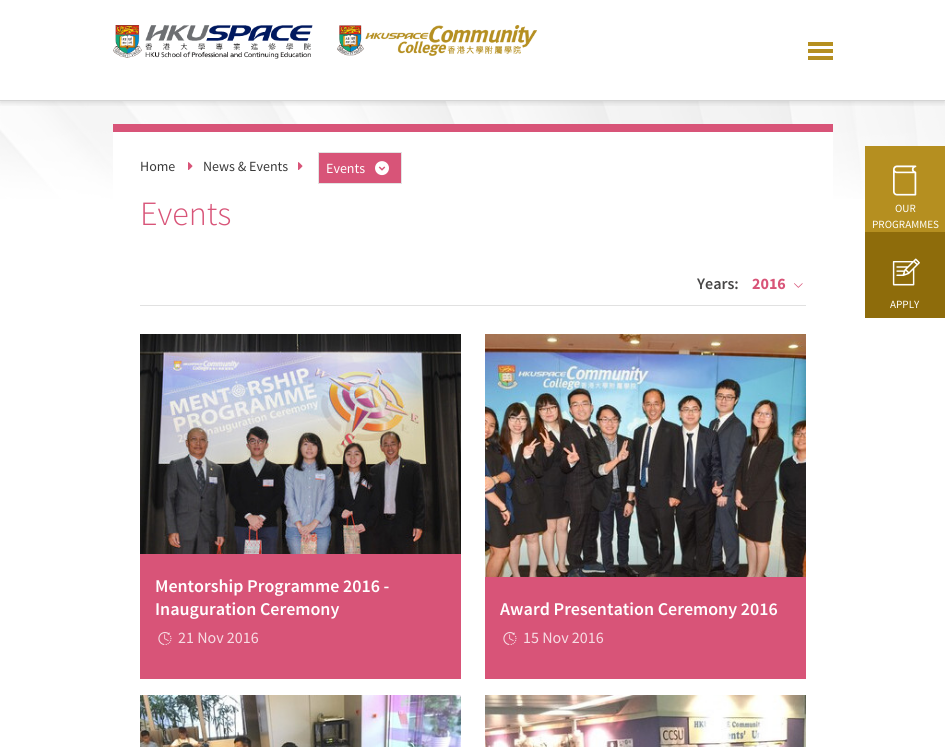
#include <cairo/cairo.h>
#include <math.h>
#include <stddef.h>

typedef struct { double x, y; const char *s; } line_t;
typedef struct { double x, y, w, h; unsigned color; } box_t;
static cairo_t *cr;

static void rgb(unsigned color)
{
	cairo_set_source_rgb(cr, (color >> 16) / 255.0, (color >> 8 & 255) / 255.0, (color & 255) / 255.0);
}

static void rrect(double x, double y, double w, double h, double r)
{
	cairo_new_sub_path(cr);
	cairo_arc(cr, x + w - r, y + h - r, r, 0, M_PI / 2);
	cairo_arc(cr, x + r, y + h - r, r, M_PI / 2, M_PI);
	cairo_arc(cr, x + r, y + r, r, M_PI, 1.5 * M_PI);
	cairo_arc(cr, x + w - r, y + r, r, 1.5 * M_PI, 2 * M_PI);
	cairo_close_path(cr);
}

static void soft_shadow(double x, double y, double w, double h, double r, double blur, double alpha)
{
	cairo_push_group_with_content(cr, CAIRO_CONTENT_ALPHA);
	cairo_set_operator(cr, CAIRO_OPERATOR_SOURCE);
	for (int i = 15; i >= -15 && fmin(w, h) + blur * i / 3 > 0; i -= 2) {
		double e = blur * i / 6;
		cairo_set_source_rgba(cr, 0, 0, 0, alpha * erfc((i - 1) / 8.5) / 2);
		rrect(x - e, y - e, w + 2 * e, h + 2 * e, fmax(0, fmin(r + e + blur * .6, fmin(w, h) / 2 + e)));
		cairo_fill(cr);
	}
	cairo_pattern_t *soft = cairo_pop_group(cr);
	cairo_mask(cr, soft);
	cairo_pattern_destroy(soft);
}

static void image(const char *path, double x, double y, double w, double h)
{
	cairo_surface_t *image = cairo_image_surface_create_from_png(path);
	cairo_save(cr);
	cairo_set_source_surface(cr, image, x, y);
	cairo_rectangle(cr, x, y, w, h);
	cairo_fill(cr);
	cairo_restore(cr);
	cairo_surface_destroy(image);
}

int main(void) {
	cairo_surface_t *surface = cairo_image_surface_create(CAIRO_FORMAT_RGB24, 945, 747);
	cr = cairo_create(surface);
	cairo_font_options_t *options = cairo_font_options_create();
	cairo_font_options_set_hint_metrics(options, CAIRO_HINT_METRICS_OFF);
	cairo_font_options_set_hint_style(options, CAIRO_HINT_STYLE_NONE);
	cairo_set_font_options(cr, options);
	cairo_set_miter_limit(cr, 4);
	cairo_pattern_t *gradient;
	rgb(0xffffff);
	cairo_paint(cr);
	image("img/3.png", 0, 101, 945, 98);
	cairo_save(cr);
	cairo_rectangle(cr, 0, 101, 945, 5);
	cairo_clip(cr);
	rgb(0x323232);
	soft_shadow(0, 2, 945, 101, 0, 2.5, 0.15);
	cairo_restore(cr);
	rgb(0xd4d4d4);
	cairo_rectangle(cr, 0, 100, 945, 1);
	cairo_fill(cr);
	image("img/1.png", 113, 25, 200, 34);
	image("img/2.png", 337, 25, 200, 31);
	{
		static const box_t items[] = {
			{808, 42, 25, 4, 0xb58f20},
			{808, 49, 25, 4, 0xb58f20},
			{808, 56, 25, 4, 0xb58f20},
		};
		for (size_t i = 0; i < sizeof items / sizeof *items; i++) {
			rgb(items[i].color);
			cairo_rectangle(cr, items[i].x, items[i].y, items[i].w, items[i].h);
			cairo_fill(cr);
		}
	}
	gradient = cairo_pattern_create_linear(473, 132, 473, 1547);
	cairo_pattern_add_color_stop_rgba(gradient, 0, 1, 1, 1, 1);
	cairo_pattern_add_color_stop_rgba(gradient, 1, 1, 1, 1, 0);
	cairo_set_source(cr, gradient);
	cairo_pattern_destroy(gradient);
	cairo_rectangle(cr, 113, 132, 720, 67);
	cairo_fill(cr);
	rgb(0xd85478);
	cairo_rectangle(cr, 113, 124, 720, 8);
	cairo_fill(cr);
	image("img/4.png", 188, 162, 5, 8);
	image("img/5.png", 298, 162, 5, 8);
	cairo_rectangle(cr, 318.5, 152.5, 83, 31);
	cairo_fill_preserve(cr);
	rgb(0xe3e3e3);
	cairo_set_line_width(cr, 1);
	cairo_stroke(cr);
	image("img/6.png", 375, 161, 14, 15);
	rgb(0xe1e1e1);
	cairo_rectangle(cr, 140, 305, 666, 1);
	cairo_fill(cr);
	image("img/7.png", 794, 283, 9, 5);
	image("img/8.png", 140, 334, 321, 220);
	gradient = cairo_pattern_create_linear(301, 334, 301, 679);
	cairo_pattern_add_color_stop_rgba(gradient, 0, 1, 1, 1, 0);
	cairo_pattern_add_color_stop_rgba(gradient, 0.6, 0.2, 0.2, 0.2, 0);
	cairo_pattern_add_color_stop_rgba(gradient, 1, 0.2, 0.2, 0.2, 0.65);
	cairo_set_source(cr, gradient);
	cairo_pattern_destroy(gradient);
	cairo_rectangle(cr, 175, 546, 186, 8);
	cairo_fill(cr);
	rgb(0xd85478);
	cairo_rectangle(cr, 140, 554, 321, 125);
	cairo_fill(cr);
	image("img/9.png", 158, 632, 14, 13);
	image("img/10.png", 485, 334, 321, 243);
	gradient = cairo_pattern_create_linear(646, 334, 646, 679);
	cairo_pattern_add_color_stop_rgba(gradient, 0, 1, 1, 1, 0);
	cairo_pattern_add_color_stop_rgba(gradient, 0.6, 0.2, 0.2, 0.2, 0);
	cairo_pattern_add_color_stop_rgba(gradient, 1, 0.2, 0.2, 0.2, 0.65);
	cairo_set_source(cr, gradient);
	cairo_pattern_destroy(gradient);
	cairo_rectangle(cr, 485, 546, 321, 31);
	cairo_fill(cr);
	rgb(0xd85478);
	cairo_rectangle(cr, 485, 577, 321, 102);
	cairo_fill(cr);
	image("img/9.png", 503, 632, 14, 13);
	image("img/11.png", 140, 695, 321, 52);
	image("img/12.png", 485, 695, 321, 52);
	rgb(0xb58f20);
	cairo_rectangle(cr, 865, 146, 80, 86);
	cairo_fill(cr);
	image("img/13.png", 893, 165, 24, 31);
	rgb(0x8e6c0b);
	cairo_rectangle(cr, 865, 232, 80, 86);
	cairo_fill(cr);
	image("img/14.png", 892, 258, 28, 28);
	cairo_select_font_face(cr, "Source Sans Pro", CAIRO_FONT_SLANT_NORMAL, CAIRO_FONT_WEIGHT_NORMAL);
	cairo_set_font_size(cr, 14);
	rgb(0x3a3a3a);
	cairo_move_to(cr, 140, 171);
	cairo_show_text(cr, "Home");
	cairo_move_to(cr, 203, 171);
	cairo_show_text(cr, "News & Events");
	rgb(0xffffff);
	cairo_move_to(cr, 326, 173);
	cairo_show_text(cr, "Events");
	cairo_select_font_face(cr, "Source Sans Pro Light", CAIRO_FONT_SLANT_NORMAL, CAIRO_FONT_WEIGHT_NORMAL);
	cairo_set_font_size(cr, 34);
	rgb(0xd85478);
	cairo_move_to(cr, 140, 225);
	cairo_show_text(cr, "Events");
	cairo_select_font_face(cr, "Source Sans Pro SemiBold", CAIRO_FONT_SLANT_NORMAL, CAIRO_FONT_WEIGHT_NORMAL);
	cairo_set_font_size(cr, 16);
	rgb(0x474646);
	cairo_move_to(cr, 697, 289);
	cairo_show_text(cr, "Years:");
	cairo_select_font_face(cr, "Source Sans Pro", CAIRO_FONT_SLANT_NORMAL, CAIRO_FONT_WEIGHT_BOLD);
	rgb(0xd85478);
	cairo_move_to(cr, 752, 289);
	cairo_show_text(cr, "2016");
	cairo_select_font_face(cr, "Source Sans Pro SemiBold", CAIRO_FONT_SLANT_NORMAL, CAIRO_FONT_WEIGHT_NORMAL);
	cairo_set_font_size(cr, 18);
	rgb(0xffffff);
	cairo_move_to(cr, 155, 592);
	cairo_show_text(cr, "Mentorship Programme 2016 -");
	cairo_move_to(cr, 155, 615);
	cairo_show_text(cr, "Inauguration Ceremony");
	cairo_select_font_face(cr, "Source Sans Pro", CAIRO_FONT_SLANT_NORMAL, CAIRO_FONT_WEIGHT_NORMAL);
	cairo_set_font_size(cr, 16);
	rgb(0xf7dde4);
	cairo_move_to(cr, 178, 643);
	cairo_show_text(cr, "21 Nov 2016");
	cairo_select_font_face(cr, "Source Sans Pro SemiBold", CAIRO_FONT_SLANT_NORMAL, CAIRO_FONT_WEIGHT_NORMAL);
	cairo_set_font_size(cr, 18);
	rgb(0xffffff);
	cairo_move_to(cr, 500, 615);
	cairo_show_text(cr, "Award Presentation Ceremony 2016");
	cairo_select_font_face(cr, "Source Sans Pro", CAIRO_FONT_SLANT_NORMAL, CAIRO_FONT_WEIGHT_NORMAL);
	cairo_set_font_size(cr, 16);
	rgb(0xf7dde4);
	cairo_move_to(cr, 523, 643);
	cairo_show_text(cr, "15 Nov 2016");
	cairo_set_font_size(cr, 11);
	rgb(0xffffff);
	{
		static const line_t items[] = {
			{895, 212, "OUR"},
			{872, 228, "PROGRAMMES"},
			{890, 308, "APPLY"},
		};
		for (size_t i = 0; i < sizeof items / sizeof *items; i++) {
			cairo_move_to(cr, items[i].x, items[i].y);
			cairo_show_text(cr, items[i].s);
		}
	}
	cairo_surface_write_to_png(surface, "page.png");
	cairo_font_options_destroy(options);
	cairo_destroy(cr);
	cairo_surface_destroy(surface);
	return 0;
}
